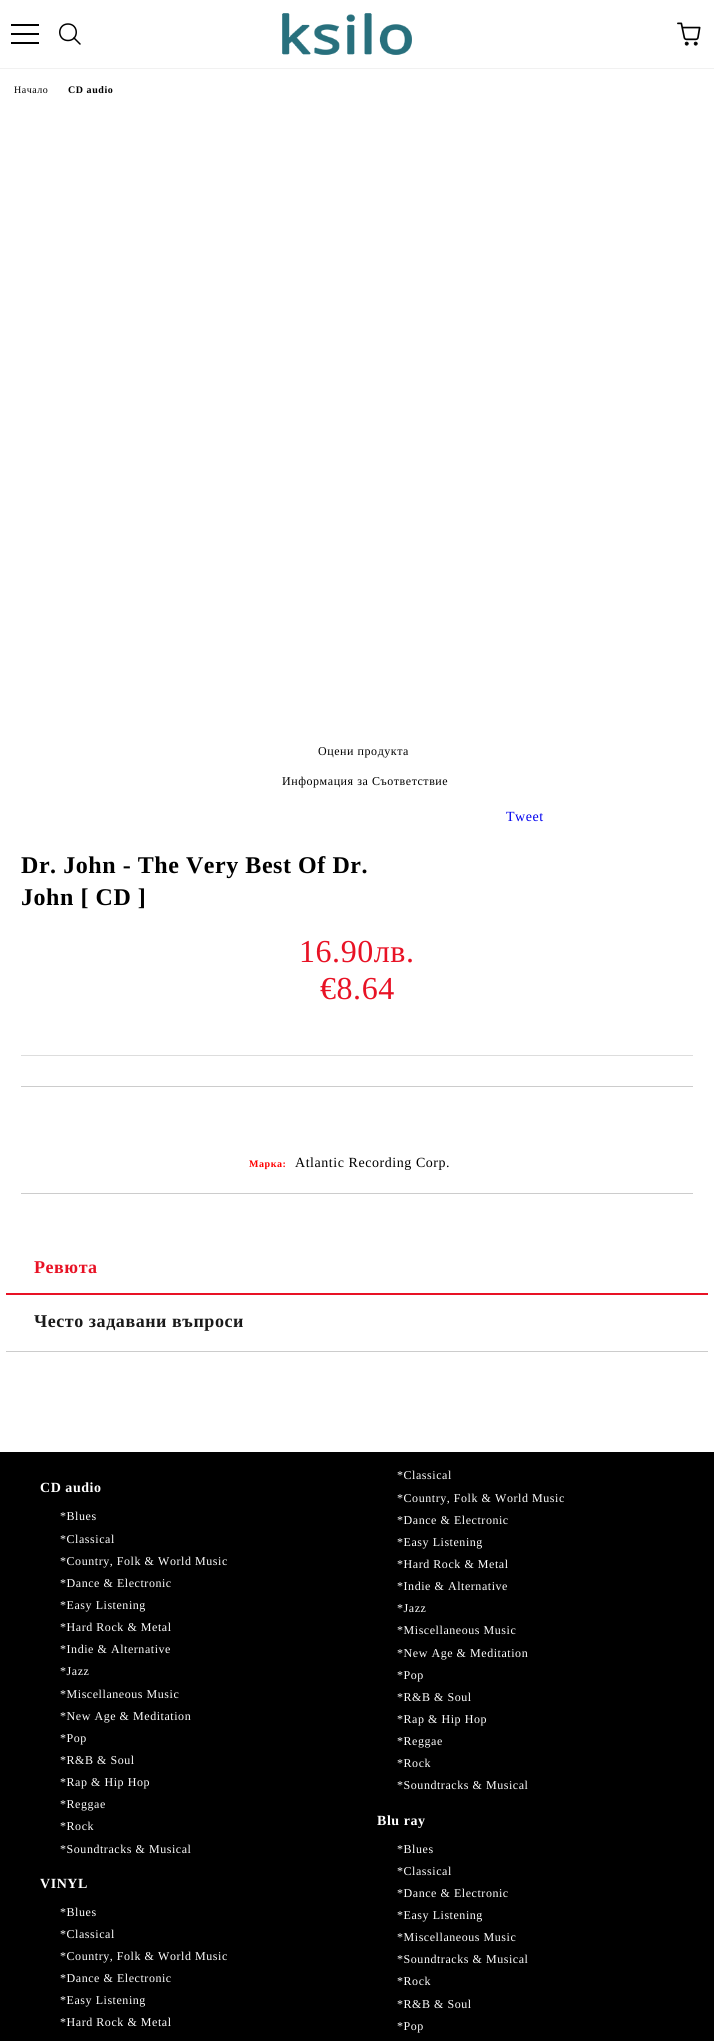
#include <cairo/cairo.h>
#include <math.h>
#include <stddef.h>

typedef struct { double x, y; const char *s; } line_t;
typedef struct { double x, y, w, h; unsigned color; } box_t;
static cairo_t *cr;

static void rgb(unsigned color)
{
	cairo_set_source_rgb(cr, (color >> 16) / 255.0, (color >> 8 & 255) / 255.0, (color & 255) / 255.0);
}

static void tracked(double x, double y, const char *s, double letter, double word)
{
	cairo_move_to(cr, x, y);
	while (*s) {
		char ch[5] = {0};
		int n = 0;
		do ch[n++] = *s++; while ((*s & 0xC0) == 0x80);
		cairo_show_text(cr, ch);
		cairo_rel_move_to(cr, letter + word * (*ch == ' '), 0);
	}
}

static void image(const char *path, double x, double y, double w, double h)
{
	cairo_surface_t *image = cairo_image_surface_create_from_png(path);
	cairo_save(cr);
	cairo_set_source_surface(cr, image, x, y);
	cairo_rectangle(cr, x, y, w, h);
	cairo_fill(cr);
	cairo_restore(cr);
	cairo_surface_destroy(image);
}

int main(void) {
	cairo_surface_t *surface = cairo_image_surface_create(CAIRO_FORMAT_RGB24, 714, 2041);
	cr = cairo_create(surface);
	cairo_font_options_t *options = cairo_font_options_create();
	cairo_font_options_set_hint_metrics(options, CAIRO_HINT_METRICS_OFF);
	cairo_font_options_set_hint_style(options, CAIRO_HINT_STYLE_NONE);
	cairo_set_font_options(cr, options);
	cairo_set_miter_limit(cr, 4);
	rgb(0xffffff);
	cairo_paint(cr);
	{
		static const box_t items[] = {
			{0, 68, 714, 1, 0xf1f1f1},
			{11, 24, 28, 2, 0x000000},
			{11, 33, 28, 2, 0x000000},
			{11, 42, 28, 2, 0x000000},
		};
		for (size_t i = 0; i < sizeof items / sizeof *items; i++) {
			rgb(items[i].color);
			cairo_rectangle(cr, items[i].x, items[i].y, items[i].w, items[i].h);
			cairo_fill(cr);
		}
	}
	cairo_new_path(cr);
	cairo_move_to(cr, 68, 24);
	cairo_curve_to(cr, 57, 24, 57, 40.5, 68, 40.5);
	cairo_curve_to(cr, 79, 40.5, 79, 24, 68, 24);
	cairo_close_path(cr);
	cairo_set_line_width(cr, 1.5);
	cairo_stroke(cr);
	cairo_new_path(cr);
	cairo_move_to(cr, 74, 38);
	cairo_line_to(cr, 80, 44);
	cairo_set_line_cap(cr, CAIRO_LINE_CAP_ROUND);
	cairo_stroke(cr);
	image("img/1.png", 282, 13, 130, 42);
	image("img/2.png", 677, 22, 24, 24);
	{
		static const box_t items[] = {
			{21, 1055, 672, 1, 0xdddddd},
			{21, 1086, 672, 1, 0xcccccc},
			{21, 1193, 672, 1, 0xcccccc},
			{6, 1351, 702, 1, 0xcccccc},
			{6, 1293, 702, 2, 0xe81225},
			{0, 1452, 714, 589, 0x000000},
		};
		for (size_t i = 0; i < sizeof items / sizeof *items; i++) {
			rgb(items[i].color);
			cairo_rectangle(cr, items[i].x, items[i].y, items[i].w, items[i].h);
			cairo_fill(cr);
		}
	}
	cairo_select_font_face(cr, "Liberation Serif", CAIRO_FONT_SLANT_NORMAL, CAIRO_FONT_WEIGHT_NORMAL);
	cairo_set_font_size(cr, 10);
	tracked(14, 93, "Начало", 0.55, 0);
	cairo_select_font_face(cr, "Liberation Serif", CAIRO_FONT_SLANT_NORMAL, CAIRO_FONT_WEIGHT_BOLD);
	tracked(68, 93, "CD audio", 0.55, 0);
	cairo_select_font_face(cr, "Liberation Serif", CAIRO_FONT_SLANT_NORMAL, CAIRO_FONT_WEIGHT_NORMAL);
	cairo_set_font_size(cr, 12);
	tracked(318, 755, "Оцени продукта", 0.55, 0);
	tracked(282, 785, "Информация за Съответствие", 0.55, 0);
	cairo_set_font_size(cr, 14);
	rgb(0x0000ee);
	tracked(506, 821, "Tweet", 0.55, 0);
	cairo_select_font_face(cr, "Liberation Serif", CAIRO_FONT_SLANT_NORMAL, CAIRO_FONT_WEIGHT_BOLD);
	cairo_set_font_size(cr, 24);
	rgb(0x000000);
	tracked(21, 873, "Dr. John - The Very Best Of Dr.", 0.55, 0);
	tracked(21, 905, "John [ CD ]", 0.55, 0);
	cairo_select_font_face(cr, "Liberation Serif", CAIRO_FONT_SLANT_NORMAL, CAIRO_FONT_WEIGHT_NORMAL);
	cairo_set_font_size(cr, 32);
	rgb(0xe81225);
	tracked(299, 962, "16.90лв.", 0.55, 0);
	tracked(320, 999, "€8.64", 0.55, 0);
	cairo_select_font_face(cr, "Liberation Serif", CAIRO_FONT_SLANT_NORMAL, CAIRO_FONT_WEIGHT_BOLD);
	cairo_set_font_size(cr, 10);
	rgb(0xff0000);
	tracked(249, 1167, "Марка:", 0.55, 0);
	cairo_select_font_face(cr, "Liberation Serif", CAIRO_FONT_SLANT_NORMAL, CAIRO_FONT_WEIGHT_NORMAL);
	cairo_set_font_size(cr, 14);
	rgb(0x000000);
	tracked(295, 1167, "Atlantic Recording Corp.", 0.55, 0);
	cairo_select_font_face(cr, "Liberation Serif", CAIRO_FONT_SLANT_NORMAL, CAIRO_FONT_WEIGHT_BOLD);
	cairo_set_font_size(cr, 18);
	rgb(0xe81225);
	tracked(34, 1273, "Ревюта", 0.55, 0);
	rgb(0x1a1a1a);
	tracked(34, 1327, "Често задавани въпроси", 0.55, 0);
	cairo_set_font_size(cr, 14);
	rgb(0xffffff);
	tracked(40, 1492, "CD audio", 0.55, 0);
	cairo_select_font_face(cr, "Liberation Serif", CAIRO_FONT_SLANT_NORMAL, CAIRO_FONT_WEIGHT_NORMAL);
	cairo_set_font_size(cr, 12);
	{
		static const line_t items[] = {
			{60, 1520, "*Blues"},
			{60, 1543, "*Classical"},
			{60, 1565, "*Country, Folk & World Music"},
			{60, 1587, "*Dance & Electronic"},
			{60, 1609, "*Easy Listening"},
			{60, 1631, "*Hard Rock & Metal"},
			{60, 1653, "*Indie & Alternative"},
			{60, 1675, "*Jazz"},
			{60, 1698, "*Miscellaneous Music"},
			{60, 1720, "*New Age & Meditation"},
			{60, 1742, "*Pop"},
			{60, 1764, "*R&B & Soul"},
			{60, 1786, "*Rap & Hip Hop"},
			{60, 1808, "*Reggae"},
			{60, 1830, "*Rock"},
			{60, 1853, "*Soundtracks & Musical"},
		};
		for (size_t i = 0; i < sizeof items / sizeof *items; i++) {
			tracked(items[i].x, items[i].y, items[i].s, 0.55, 0);
		}
	}
	cairo_select_font_face(cr, "Liberation Serif", CAIRO_FONT_SLANT_NORMAL, CAIRO_FONT_WEIGHT_BOLD);
	cairo_set_font_size(cr, 14);
	tracked(40, 1888, "VINYL", 0.55, 0);
	cairo_select_font_face(cr, "Liberation Serif", CAIRO_FONT_SLANT_NORMAL, CAIRO_FONT_WEIGHT_NORMAL);
	cairo_set_font_size(cr, 12);
	{
		static const line_t items[] = {
			{60, 1916, "*Blues"},
			{60, 1938, "*Classical"},
			{60, 1960, "*Country, Folk & World Music"},
			{60, 1982, "*Dance & Electronic"},
			{60, 2004, "*Easy Listening"},
			{60, 2026, "*Hard Rock & Metal"},
			{397, 1479, "*Classical"},
			{397, 1502, "*Country, Folk & World Music"},
			{397, 1524, "*Dance & Electronic"},
			{397, 1546, "*Easy Listening"},
			{397, 1568, "*Hard Rock & Metal"},
			{397, 1590, "*Indie & Alternative"},
			{397, 1612, "*Jazz"},
			{397, 1634, "*Miscellaneous Music"},
			{397, 1657, "*New Age & Meditation"},
			{397, 1679, "*Pop"},
			{397, 1701, "*R&B & Soul"},
			{397, 1723, "*Rap & Hip Hop"},
			{397, 1745, "*Reggae"},
			{397, 1767, "*Rock"},
			{397, 1789, "*Soundtracks & Musical"},
		};
		for (size_t i = 0; i < sizeof items / sizeof *items; i++) {
			tracked(items[i].x, items[i].y, items[i].s, 0.55, 0);
		}
	}
	cairo_select_font_face(cr, "Liberation Serif", CAIRO_FONT_SLANT_NORMAL, CAIRO_FONT_WEIGHT_BOLD);
	cairo_set_font_size(cr, 14);
	tracked(377, 1825, "Blu ray", 0.55, 0);
	cairo_select_font_face(cr, "Liberation Serif", CAIRO_FONT_SLANT_NORMAL, CAIRO_FONT_WEIGHT_NORMAL);
	cairo_set_font_size(cr, 12);
	{
		static const line_t items[] = {
			{397, 1853, "*Blues"},
			{397, 1875, "*Classical"},
			{397, 1897, "*Dance & Electronic"},
			{397, 1919, "*Easy Listening"},
			{397, 1941, "*Miscellaneous Music"},
			{397, 1963, "*Soundtracks & Musical"},
			{397, 1985, "*Rock"},
			{397, 2008, "*R&B & Soul"},
			{397, 2030, "*Pop"},
		};
		for (size_t i = 0; i < sizeof items / sizeof *items; i++) {
			tracked(items[i].x, items[i].y, items[i].s, 0.55, 0);
		}
	}
	cairo_surface_write_to_png(surface, "page.png");
	cairo_font_options_destroy(options);
	cairo_destroy(cr);
	cairo_surface_destroy(surface);
	return 0;
}
